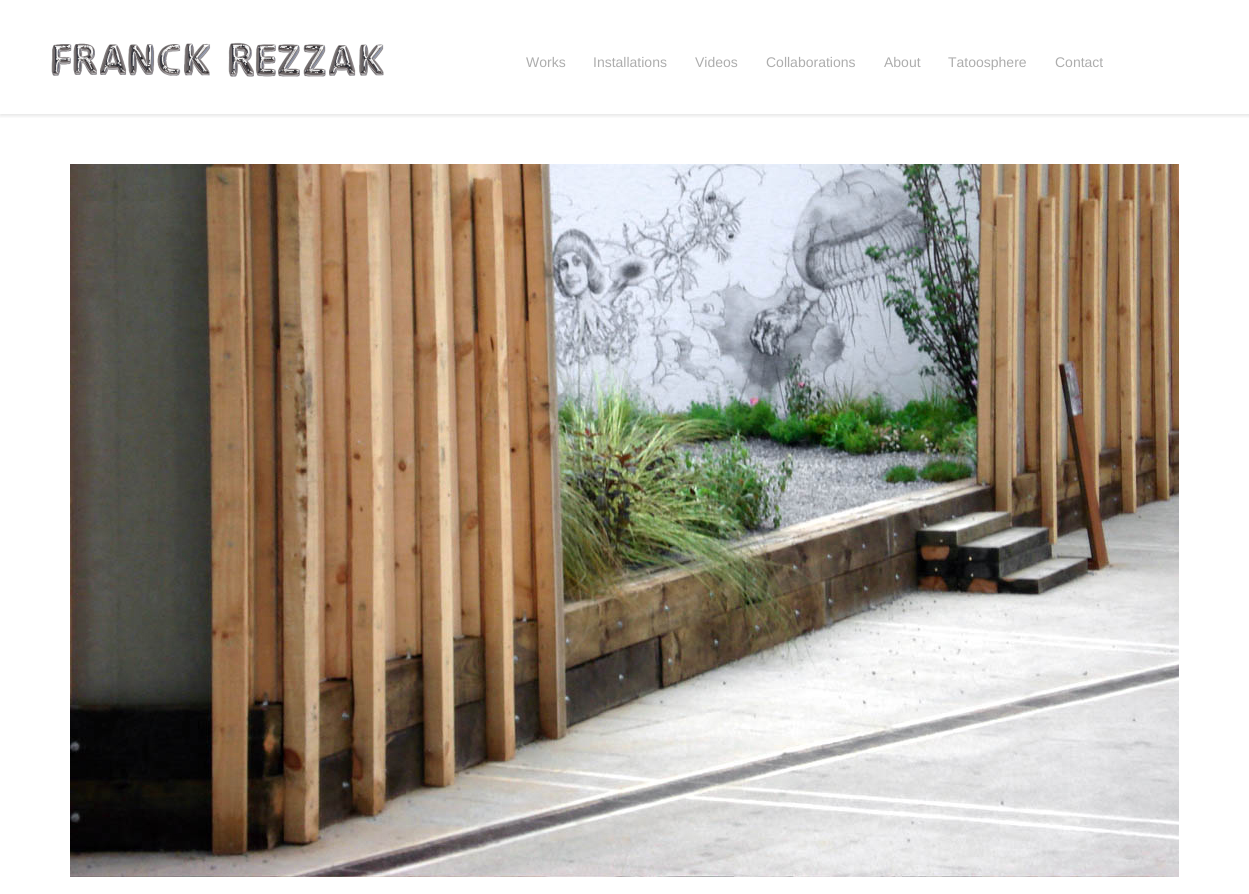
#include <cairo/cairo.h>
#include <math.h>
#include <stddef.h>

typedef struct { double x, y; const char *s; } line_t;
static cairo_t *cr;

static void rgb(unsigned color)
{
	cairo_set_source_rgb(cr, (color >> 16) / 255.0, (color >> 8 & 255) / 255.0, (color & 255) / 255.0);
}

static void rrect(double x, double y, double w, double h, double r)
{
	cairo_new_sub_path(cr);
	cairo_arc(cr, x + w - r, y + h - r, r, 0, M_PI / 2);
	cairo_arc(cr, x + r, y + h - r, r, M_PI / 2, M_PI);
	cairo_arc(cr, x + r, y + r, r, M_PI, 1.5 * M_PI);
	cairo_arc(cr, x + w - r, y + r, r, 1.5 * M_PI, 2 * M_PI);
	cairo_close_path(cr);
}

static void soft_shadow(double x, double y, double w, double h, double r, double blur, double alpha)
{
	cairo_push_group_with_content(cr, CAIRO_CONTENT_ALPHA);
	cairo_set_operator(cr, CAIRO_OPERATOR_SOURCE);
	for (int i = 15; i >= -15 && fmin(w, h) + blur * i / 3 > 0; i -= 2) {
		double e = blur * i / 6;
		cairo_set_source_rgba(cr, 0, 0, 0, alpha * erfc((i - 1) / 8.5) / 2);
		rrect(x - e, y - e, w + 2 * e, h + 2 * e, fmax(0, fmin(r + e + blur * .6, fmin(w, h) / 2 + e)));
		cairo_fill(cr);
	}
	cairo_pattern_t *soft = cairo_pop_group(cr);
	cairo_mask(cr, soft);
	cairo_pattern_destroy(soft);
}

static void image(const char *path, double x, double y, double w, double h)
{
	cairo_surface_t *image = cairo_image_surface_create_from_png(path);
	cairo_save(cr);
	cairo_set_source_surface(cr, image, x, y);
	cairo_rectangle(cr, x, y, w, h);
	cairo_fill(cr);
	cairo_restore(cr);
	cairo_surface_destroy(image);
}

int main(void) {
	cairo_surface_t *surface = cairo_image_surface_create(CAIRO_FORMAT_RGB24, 1249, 894);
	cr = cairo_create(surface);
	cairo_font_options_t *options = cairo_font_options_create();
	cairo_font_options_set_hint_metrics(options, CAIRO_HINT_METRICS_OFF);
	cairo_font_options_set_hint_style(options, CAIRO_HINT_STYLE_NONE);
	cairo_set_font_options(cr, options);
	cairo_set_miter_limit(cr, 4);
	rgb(0xffffff);
	cairo_paint(cr);
	cairo_save(cr);
	cairo_rectangle(cr, 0, 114, 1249, 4);
	cairo_clip(cr);
	rgb(0x000000);
	soft_shadow(0, 0, 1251, 116, 0, 2, 0.1);
	cairo_restore(cr);
	image("img/1.png", 51, 42, 333, 35);
	image("img/2.png", 70, 164, 1109, 713);
	cairo_select_font_face(cr, "Liberation Sans", CAIRO_FONT_SLANT_NORMAL, CAIRO_FONT_WEIGHT_NORMAL);
	cairo_set_font_size(cr, 14);
	rgb(0xadadad);
	{
		static const line_t items[] = {
			{526, 67, "Works"},
			{593, 67, "Installations"},
			{695, 67, "Videos"},
			{766, 67, "Collaborations"},
			{884, 67, "About"},
			{948, 67, "Tatoosphere"},
			{1055, 67, "Contact"},
		};
		for (size_t i = 0; i < sizeof items / sizeof *items; i++) {
			cairo_move_to(cr, items[i].x, items[i].y);
			cairo_show_text(cr, items[i].s);
		}
	}
	cairo_surface_write_to_png(surface, "page.png");
	cairo_font_options_destroy(options);
	cairo_destroy(cr);
	cairo_surface_destroy(surface);
	return 0;
}
